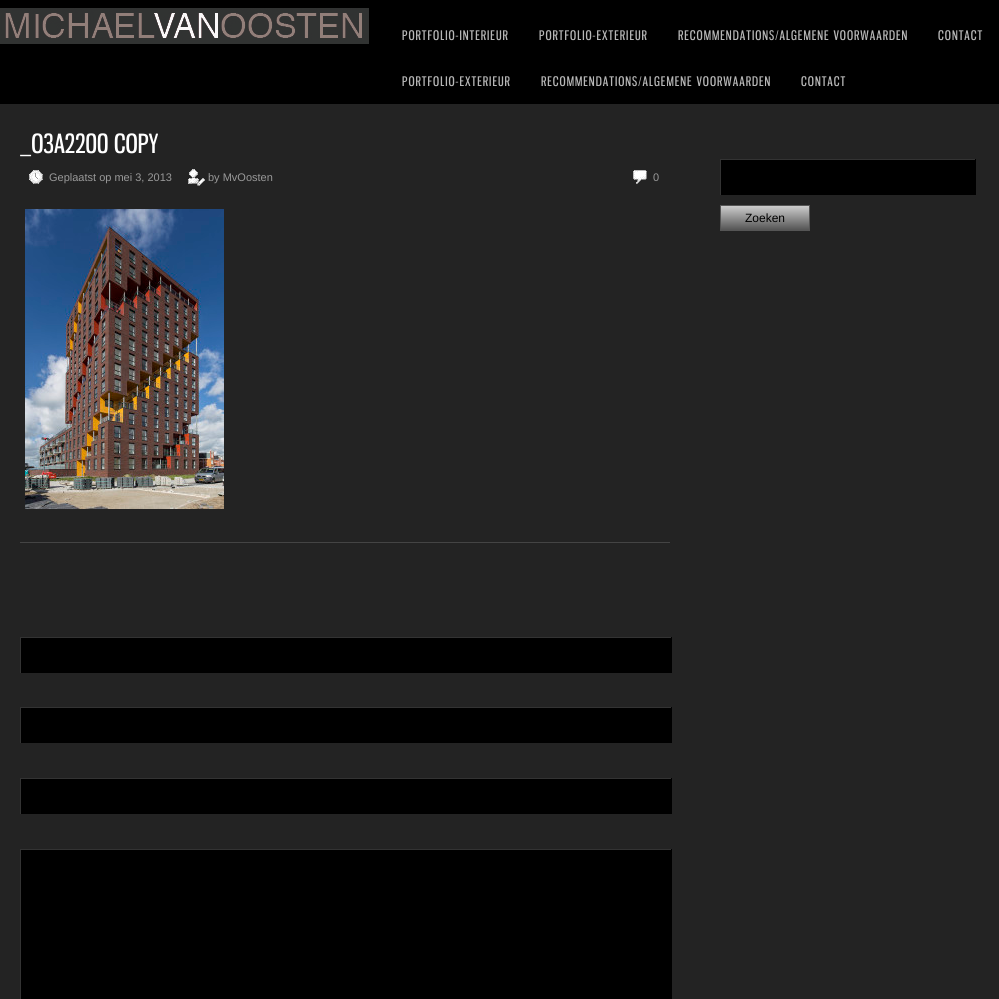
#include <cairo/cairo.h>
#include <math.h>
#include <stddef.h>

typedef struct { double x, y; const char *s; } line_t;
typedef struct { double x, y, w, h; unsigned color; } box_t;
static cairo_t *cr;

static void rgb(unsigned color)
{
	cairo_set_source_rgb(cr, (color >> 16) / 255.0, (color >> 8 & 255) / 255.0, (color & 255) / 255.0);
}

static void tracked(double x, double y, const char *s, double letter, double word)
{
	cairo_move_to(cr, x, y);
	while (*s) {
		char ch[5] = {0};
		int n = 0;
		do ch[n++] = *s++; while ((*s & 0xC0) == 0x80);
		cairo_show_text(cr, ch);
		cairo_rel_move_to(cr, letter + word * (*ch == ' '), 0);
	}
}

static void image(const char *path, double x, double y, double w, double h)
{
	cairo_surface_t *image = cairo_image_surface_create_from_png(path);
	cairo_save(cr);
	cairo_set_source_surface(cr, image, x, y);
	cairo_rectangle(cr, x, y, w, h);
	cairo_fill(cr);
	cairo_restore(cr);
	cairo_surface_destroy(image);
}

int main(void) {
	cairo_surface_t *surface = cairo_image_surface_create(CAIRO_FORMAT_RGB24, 999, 999);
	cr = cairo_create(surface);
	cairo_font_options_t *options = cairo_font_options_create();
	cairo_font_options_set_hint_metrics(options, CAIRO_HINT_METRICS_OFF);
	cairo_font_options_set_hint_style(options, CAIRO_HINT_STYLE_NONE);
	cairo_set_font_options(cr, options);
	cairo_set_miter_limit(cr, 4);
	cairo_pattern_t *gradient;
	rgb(0x000000);
	cairo_paint(cr);
	image("img/1.png", 0, 8, 369, 36);
	rgb(0x232323);
	cairo_rectangle(cr, 0, 104, 999, 895);
	cairo_fill(cr);
	rgb(0x444444);
	cairo_rectangle(cr, 20, 542, 650, 1);
	cairo_fill(cr);
	image("img/2.png", 29, 170, 14, 14);
	image("img/3.png", 188, 169, 17, 17);
	image("img/4.png", 633, 170, 14, 14);
	image("img/5.png", 25, 209, 199, 300);
	{
		static const box_t items[] = {
			{21, 638, 650, 35, 0x000000},
			{20, 637, 652, 1, 0x333333},
			{671, 637, 1, 36, 0x000000},
			{20, 637, 1, 36, 0x333333},
			{21, 708, 650, 35, 0x000000},
			{20, 707, 652, 1, 0x333333},
			{671, 707, 1, 36, 0x000000},
			{20, 707, 1, 36, 0x333333},
			{21, 779, 650, 35, 0x000000},
			{20, 778, 652, 1, 0x333333},
			{671, 778, 1, 36, 0x000000},
			{20, 778, 1, 36, 0x333333},
			{21, 850, 650, 149, 0x000000},
			{20, 849, 652, 1, 0x333333},
			{671, 849, 1, 150, 0x000000},
			{20, 849, 1, 150, 0x333333},
			{721, 160, 254, 35, 0x000000},
			{720, 159, 256, 1, 0x333333},
			{975, 159, 1, 36, 0x000000},
			{720, 159, 1, 36, 0x333333},
		};
		for (size_t i = 0; i < sizeof items / sizeof *items; i++) {
			rgb(items[i].color);
			cairo_rectangle(cr, items[i].x, items[i].y, items[i].w, items[i].h);
			cairo_fill(cr);
		}
	}
	gradient = cairo_pattern_create_linear(721, 206, 721, 230);
	cairo_pattern_add_color_stop_rgba(gradient, 0, 0.8, 0.8, 0.8, 1);
	cairo_pattern_add_color_stop_rgba(gradient, 1, 0.333, 0.333, 0.333, 1);
	cairo_set_source(cr, gradient);
	cairo_pattern_destroy(gradient);
	cairo_rectangle(cr, 721, 206, 88, 24);
	cairo_fill(cr);
	cairo_rectangle(cr, 720.5, 205.5, 89, 25);
	rgb(0x555555);
	cairo_set_line_width(cr, 1);
	cairo_stroke(cr);
	cairo_select_font_face(cr, "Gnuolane", CAIRO_FONT_SLANT_NORMAL, CAIRO_FONT_WEIGHT_NORMAL);
	cairo_set_font_size(cr, 13);
	rgb(0xb7b7b7);
	{
		static const line_t items[] = {
			{402, 40, "PORTFOLIO-INTERIEUR"},
			{539, 40, "PORTFOLIO-EXTERIEUR"},
			{678, 40, "RECOMMENDATIONS/ALGEMENE VOORWAARDEN"},
			{938, 40, "CONTACT"},
			{402, 86, "PORTFOLIO-EXTERIEUR"},
			{541, 86, "RECOMMENDATIONS/ALGEMENE VOORWAARDEN"},
			{801, 86, "CONTACT"},
		};
		for (size_t i = 0; i < sizeof items / sizeof *items; i++) {
			tracked(items[i].x, items[i].y, items[i].s, 1, 0);
		}
	}
	cairo_set_font_size(cr, 26);
	rgb(0xffffff);
	cairo_move_to(cr, 20, 153);
	cairo_show_text(cr, "_O3A2200 COPY");
	cairo_select_font_face(cr, "Liberation Sans", CAIRO_FONT_SLANT_NORMAL, CAIRO_FONT_WEIGHT_NORMAL);
	cairo_set_font_size(cr, 11);
	rgb(0x999999);
	{
		static const line_t items[] = {
			{49, 181, "Geplaatst op mei 3, 2013"},
			{208, 181, "by MvOosten"},
			{653, 181, "0"},
		};
		for (size_t i = 0; i < sizeof items / sizeof *items; i++) {
			cairo_move_to(cr, items[i].x, items[i].y);
			cairo_show_text(cr, items[i].s);
		}
	}
	cairo_set_font_size(cr, 12);
	rgb(0x000000);
	cairo_move_to(cr, 745, 222);
	cairo_show_text(cr, "Zoeken");
	cairo_surface_write_to_png(surface, "page.png");
	cairo_font_options_destroy(options);
	cairo_destroy(cr);
	cairo_surface_destroy(surface);
	return 0;
}
